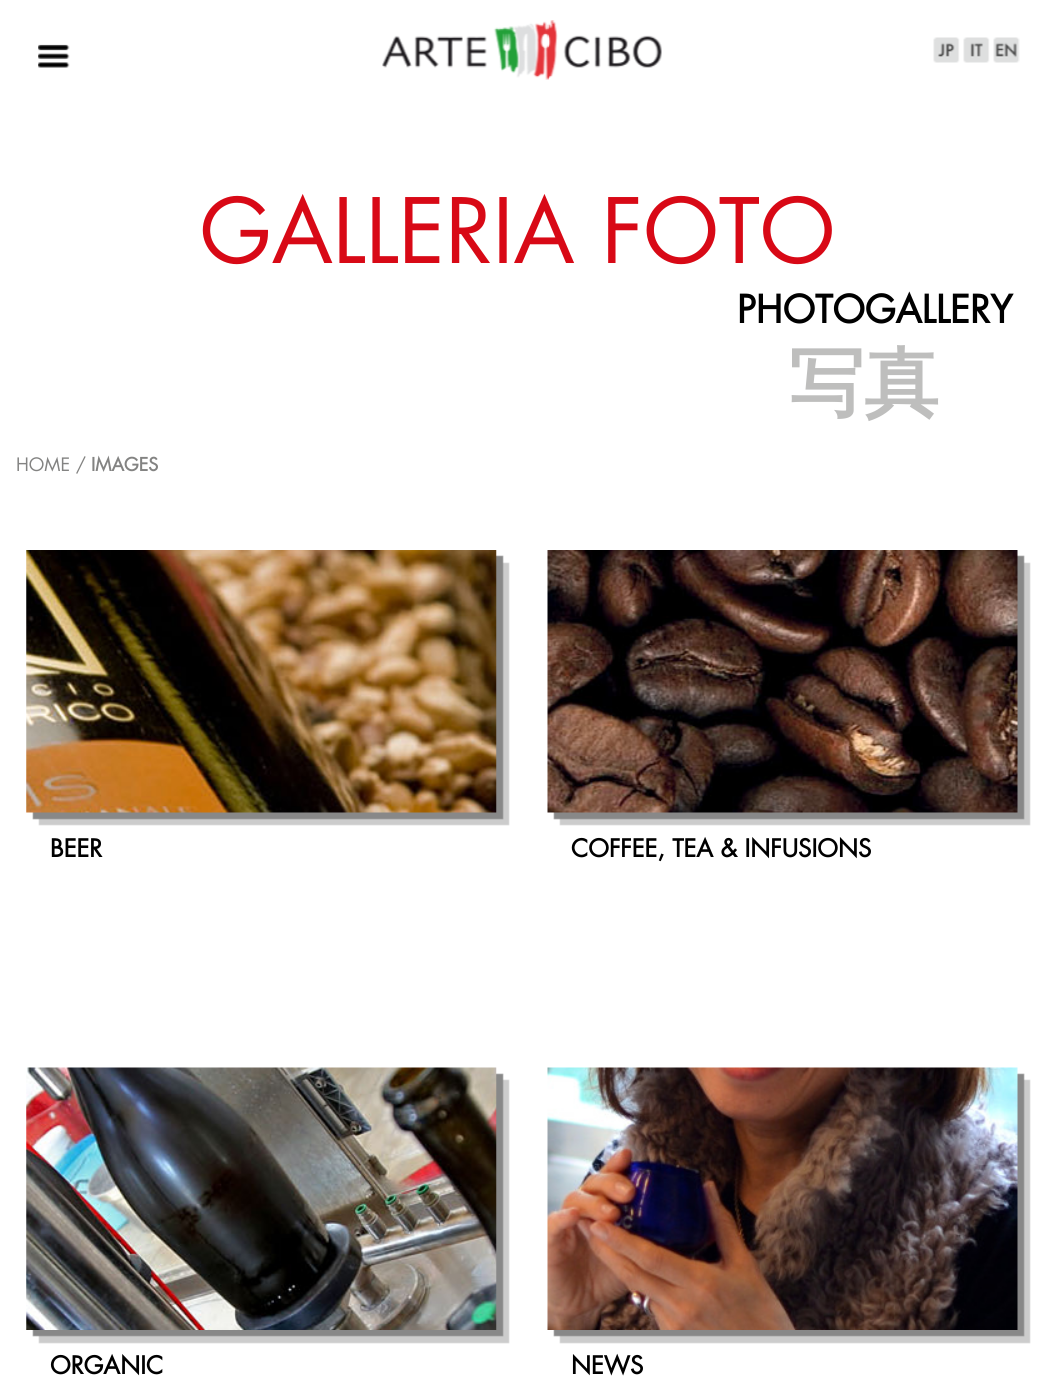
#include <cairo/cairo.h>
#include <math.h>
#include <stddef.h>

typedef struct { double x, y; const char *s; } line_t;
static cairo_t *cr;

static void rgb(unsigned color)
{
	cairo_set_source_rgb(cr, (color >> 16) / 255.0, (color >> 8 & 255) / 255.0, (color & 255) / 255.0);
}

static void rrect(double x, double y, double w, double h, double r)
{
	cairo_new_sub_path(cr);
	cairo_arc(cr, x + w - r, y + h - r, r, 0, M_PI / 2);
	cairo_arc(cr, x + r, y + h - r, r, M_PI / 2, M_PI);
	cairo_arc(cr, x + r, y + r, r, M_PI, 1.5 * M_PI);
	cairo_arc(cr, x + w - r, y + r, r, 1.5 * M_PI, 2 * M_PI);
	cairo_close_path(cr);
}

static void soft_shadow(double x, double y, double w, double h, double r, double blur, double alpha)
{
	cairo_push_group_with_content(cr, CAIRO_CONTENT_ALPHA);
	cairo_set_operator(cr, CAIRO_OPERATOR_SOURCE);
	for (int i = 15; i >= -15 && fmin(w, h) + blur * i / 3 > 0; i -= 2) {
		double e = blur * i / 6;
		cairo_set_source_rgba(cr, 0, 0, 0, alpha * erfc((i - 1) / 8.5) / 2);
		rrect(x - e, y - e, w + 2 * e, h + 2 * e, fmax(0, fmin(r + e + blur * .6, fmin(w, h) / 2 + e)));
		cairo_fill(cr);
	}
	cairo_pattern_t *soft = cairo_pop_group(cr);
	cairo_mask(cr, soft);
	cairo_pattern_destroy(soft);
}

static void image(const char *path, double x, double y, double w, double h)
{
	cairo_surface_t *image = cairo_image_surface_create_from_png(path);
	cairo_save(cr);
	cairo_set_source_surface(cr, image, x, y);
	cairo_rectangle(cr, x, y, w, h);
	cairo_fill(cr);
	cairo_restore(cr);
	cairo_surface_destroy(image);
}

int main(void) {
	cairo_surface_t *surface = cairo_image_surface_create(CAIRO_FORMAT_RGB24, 1043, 1380);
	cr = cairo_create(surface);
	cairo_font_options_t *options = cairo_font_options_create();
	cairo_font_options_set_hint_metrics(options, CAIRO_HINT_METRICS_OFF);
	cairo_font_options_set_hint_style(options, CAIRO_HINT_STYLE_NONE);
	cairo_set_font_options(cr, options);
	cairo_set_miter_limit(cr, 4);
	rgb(0xffffff);
	cairo_paint(cr);
	image("img/1.png", 38, 44, 32, 24);
	image("img/2.png", 382, 20, 280, 60);
	image("img/3.png", 933, 37, 27, 26);
	image("img/4.png", 963, 37, 27, 26);
	image("img/5.png", 993, 37, 27, 26);
	rgb(0xcccccc);
	soft_shadow(39, 563, 470, 262, 0, 0.5, 1);
	rgb(0x888888);
	soft_shadow(33, 556, 470, 263, 0, 0.5, 1);
	image("img/6.png", 26, 550, 471, 263);
	rgb(0xcccccc);
	soft_shadow(560, 563, 470, 262, 0, 0.5, 1);
	rgb(0x888888);
	soft_shadow(554, 556, 470, 263, 0, 0.5, 1);
	image("img/7.png", 547, 550, 471, 263);
	rgb(0xcccccc);
	soft_shadow(39, 1080, 470, 263, 0, 0.5, 1);
	rgb(0x888888);
	soft_shadow(33, 1074, 470, 262, 0, 0.5, 1);
	image("img/8.png", 26, 1067, 471, 263);
	rgb(0xcccccc);
	soft_shadow(560, 1080, 470, 263, 0, 0.5, 1);
	rgb(0x888888);
	soft_shadow(554, 1074, 470, 262, 0, 0.5, 1);
	image("img/9.png", 547, 1067, 471, 263);
	cairo_select_font_face(cr, "Futura", CAIRO_FONT_SLANT_NORMAL, CAIRO_FONT_WEIGHT_NORMAL);
	cairo_set_font_size(cr, 87.5);
	rgb(0xd80916);
	cairo_move_to(cr, 200, 263);
	cairo_show_text(cr, "GALLERIA FOTO");
	cairo_select_font_face(cr, "Futura", CAIRO_FONT_SLANT_NORMAL, CAIRO_FONT_WEIGHT_BOLD);
	cairo_set_font_size(cr, 37.5);
	rgb(0x000000);
	cairo_move_to(cr, 737, 323);
	cairo_show_text(cr, "PHOTOGALLERY");
	cairo_select_font_face(cr, "WenQuanYi Zen Hei", CAIRO_FONT_SLANT_NORMAL, CAIRO_FONT_WEIGHT_BOLD);
	cairo_set_font_size(cr, 75);
	rgb(0xbebebd);
	cairo_move_to(cr, 789, 409);
	cairo_show_text(cr, "写真");
	cairo_select_font_face(cr, "Futura", CAIRO_FONT_SLANT_NORMAL, CAIRO_FONT_WEIGHT_NORMAL);
	cairo_set_font_size(cr, 18);
	rgb(0x838382);
	cairo_move_to(cr, 16, 471);
	cairo_show_text(cr, "HOME /");
	cairo_select_font_face(cr, "Futura", CAIRO_FONT_SLANT_NORMAL, CAIRO_FONT_WEIGHT_BOLD);
	cairo_move_to(cr, 91, 471);
	cairo_show_text(cr, "IMAGES");
	cairo_set_font_size(cr, 24);
	rgb(0x000000);
	{
		static const line_t items[] = {
			{50, 857, "BEER"},
			{571, 857, "COFFEE, TEA & INFUSIONS"},
			{50, 1374, "ORGANIC"},
			{571, 1374, "NEWS"},
		};
		for (size_t i = 0; i < sizeof items / sizeof *items; i++) {
			cairo_move_to(cr, items[i].x, items[i].y);
			cairo_show_text(cr, items[i].s);
		}
	}
	cairo_surface_write_to_png(surface, "page.png");
	cairo_font_options_destroy(options);
	cairo_destroy(cr);
	cairo_surface_destroy(surface);
	return 0;
}
